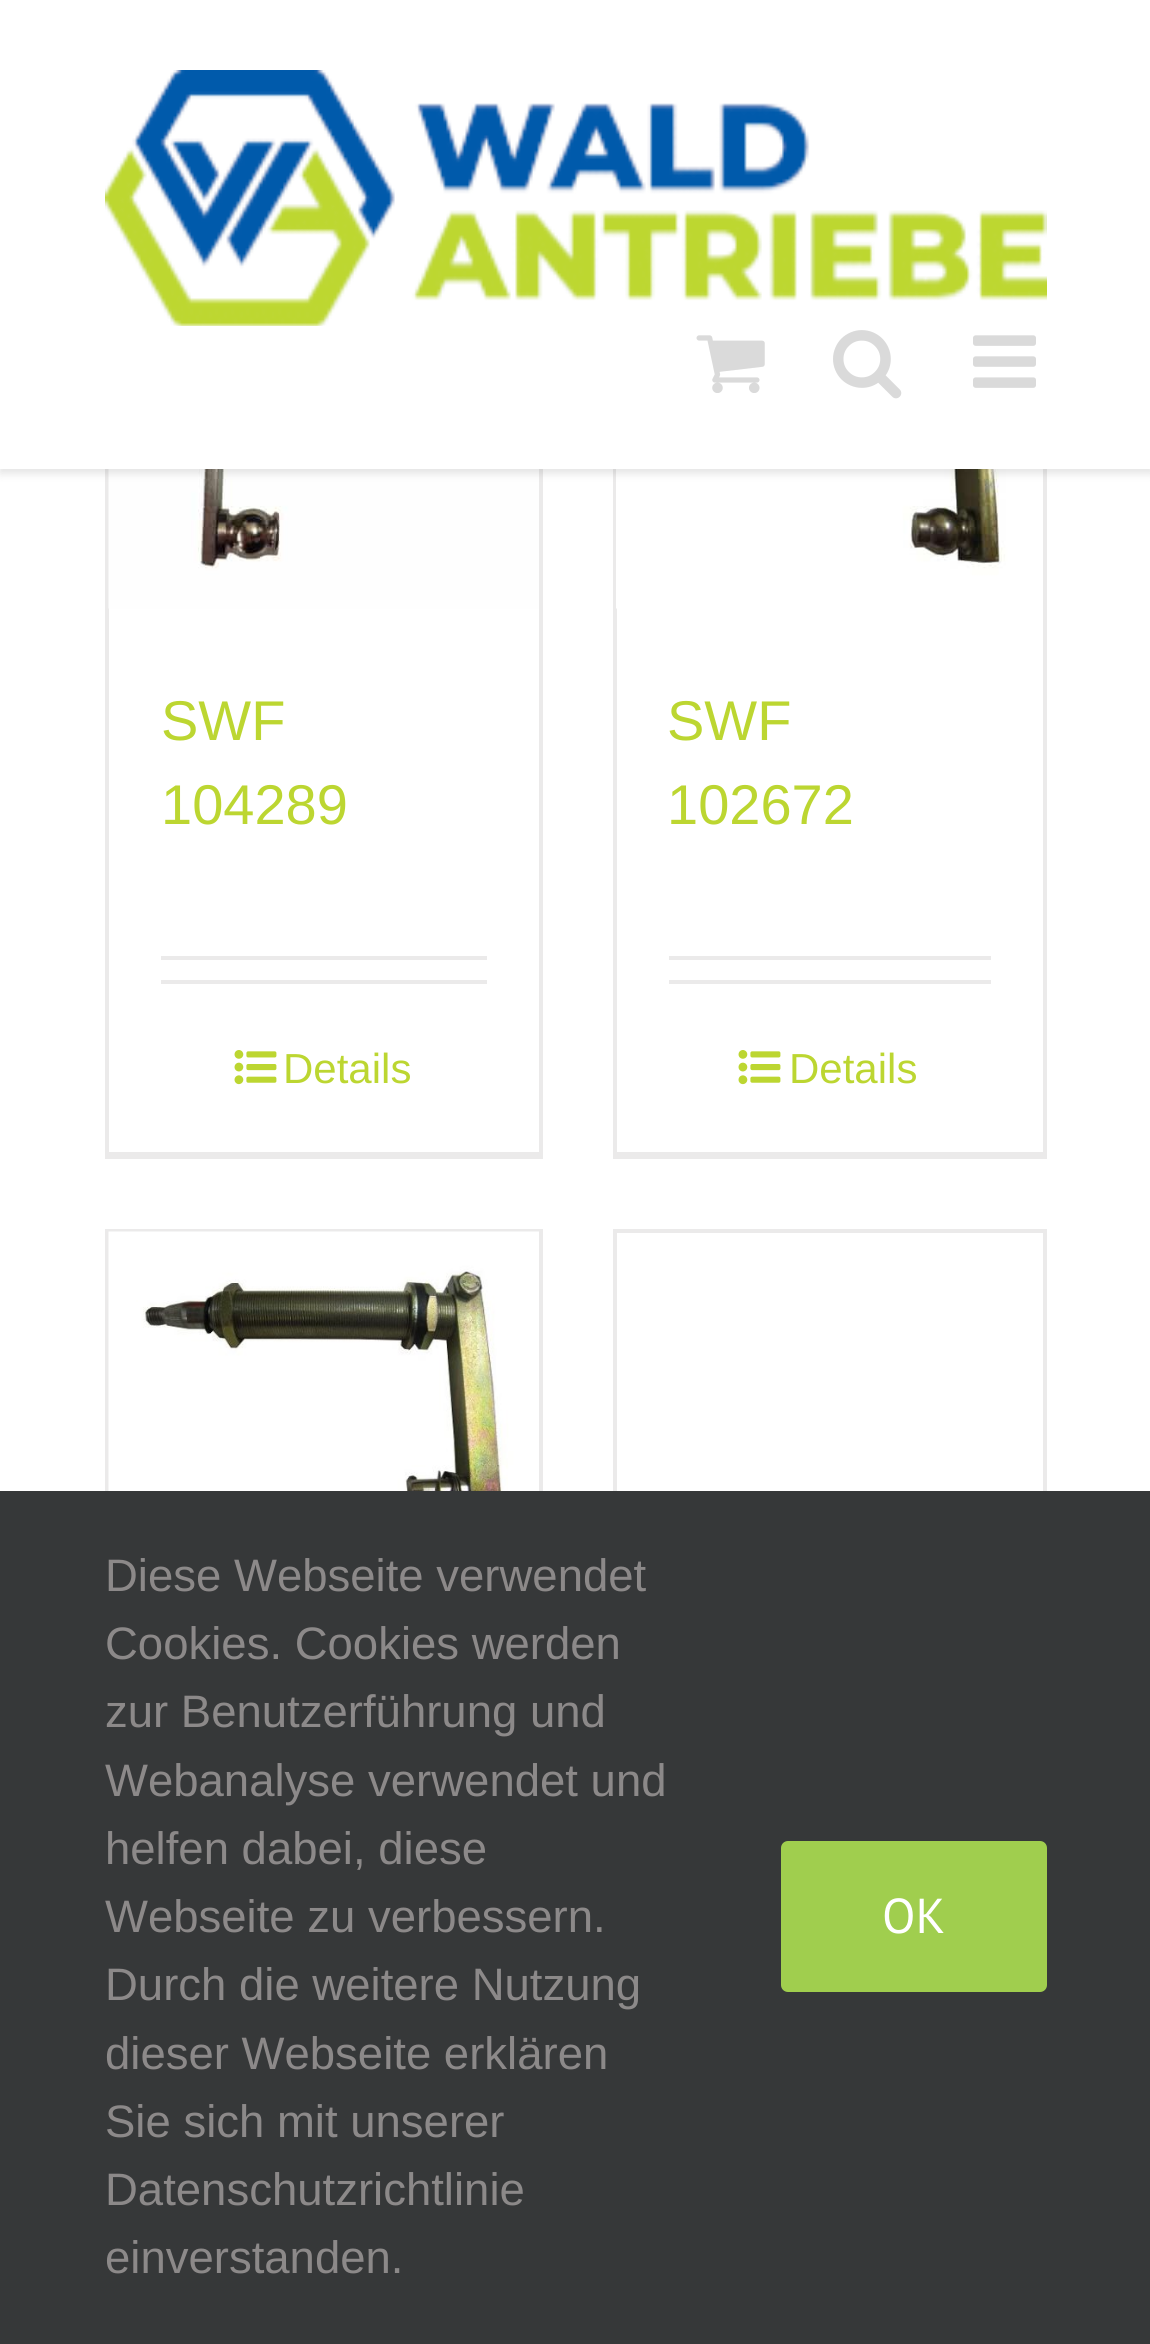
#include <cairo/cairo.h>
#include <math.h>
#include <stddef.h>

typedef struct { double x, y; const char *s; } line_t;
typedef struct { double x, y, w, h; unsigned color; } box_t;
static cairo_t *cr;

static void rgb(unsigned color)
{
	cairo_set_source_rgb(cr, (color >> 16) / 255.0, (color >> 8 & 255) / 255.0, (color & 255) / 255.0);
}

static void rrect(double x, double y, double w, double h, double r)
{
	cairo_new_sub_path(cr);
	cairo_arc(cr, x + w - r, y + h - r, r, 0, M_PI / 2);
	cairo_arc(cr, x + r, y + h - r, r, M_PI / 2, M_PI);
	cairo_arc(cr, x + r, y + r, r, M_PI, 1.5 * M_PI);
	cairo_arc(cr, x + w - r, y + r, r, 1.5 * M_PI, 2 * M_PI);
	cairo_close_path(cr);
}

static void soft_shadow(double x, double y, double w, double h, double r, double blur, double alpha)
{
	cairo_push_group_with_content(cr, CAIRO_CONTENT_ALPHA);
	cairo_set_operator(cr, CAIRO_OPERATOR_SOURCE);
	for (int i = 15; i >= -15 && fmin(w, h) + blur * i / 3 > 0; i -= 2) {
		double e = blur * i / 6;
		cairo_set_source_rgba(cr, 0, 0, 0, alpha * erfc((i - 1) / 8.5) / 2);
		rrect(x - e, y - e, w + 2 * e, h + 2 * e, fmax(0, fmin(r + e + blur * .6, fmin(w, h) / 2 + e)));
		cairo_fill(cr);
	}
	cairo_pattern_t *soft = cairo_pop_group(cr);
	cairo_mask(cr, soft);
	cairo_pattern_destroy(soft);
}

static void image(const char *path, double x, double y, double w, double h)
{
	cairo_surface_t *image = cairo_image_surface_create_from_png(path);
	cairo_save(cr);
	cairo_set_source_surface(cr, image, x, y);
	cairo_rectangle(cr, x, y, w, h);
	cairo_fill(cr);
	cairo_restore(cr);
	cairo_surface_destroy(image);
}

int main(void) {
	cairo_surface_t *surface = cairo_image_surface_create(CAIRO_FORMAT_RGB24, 1150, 2344);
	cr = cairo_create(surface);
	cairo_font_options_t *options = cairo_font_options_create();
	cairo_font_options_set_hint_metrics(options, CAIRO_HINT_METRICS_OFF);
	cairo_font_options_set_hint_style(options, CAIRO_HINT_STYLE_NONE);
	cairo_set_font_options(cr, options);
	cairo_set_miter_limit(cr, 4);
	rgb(0xffffff);
	cairo_paint(cr);
	{
		static const box_t items[] = {
			{539, 469, 4, 690, 0xebeaea},
			{105, 1152, 438, 7, 0xebeaea},
			{105, 469, 4, 690, 0xebeaea},
		};
		for (size_t i = 0; i < sizeof items / sizeof *items; i++) {
			rgb(items[i].color);
			cairo_rectangle(cr, items[i].x, items[i].y, items[i].w, items[i].h);
			cairo_fill(cr);
		}
	}
	image("img/5.png", 108, 469, 431, 140);
	{
		static const box_t items[] = {
			{1043, 469, 4, 690, 0xebeaea},
			{613, 1152, 434, 7, 0xebeaea},
			{613, 469, 4, 690, 0xebeaea},
		};
		for (size_t i = 0; i < sizeof items / sizeof *items; i++) {
			rgb(items[i].color);
			cairo_rectangle(cr, items[i].x, items[i].y, items[i].w, items[i].h);
			cairo_fill(cr);
		}
	}
	image("img/7.png", 616, 469, 427, 140);
	rgb(0x000000);
	soft_shadow(0, 4, 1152, 469, 0, 5, 0.12);
	rgb(0xffffff);
	cairo_rectangle(cr, 0, 0, 1150, 469);
	cairo_fill(cr);
	image("img/1.png", 105, 70, 942, 256);
	image("img/2.png", 696, 335, 69, 58);
	image("img/3.png", 833, 330, 69, 69);
	image("img/4.png", 973, 335, 63, 53);
	rgb(0xebeaea);
	cairo_rectangle(cr, 161, 956, 326, 4);
	cairo_fill(cr);
	cairo_rectangle(cr, 161, 980, 326, 4);
	cairo_fill(cr);
	image("img/6.png", 234, 1050, 43, 35);
	cairo_rectangle(cr, 669, 956, 322, 4);
	cairo_fill(cr);
	cairo_rectangle(cr, 669, 980, 322, 4);
	cairo_fill(cr);
	image("img/6.png", 738, 1050, 43, 35);
	{
		static const box_t items[] = {
			{105, 1229, 438, 3, 0xebeaea},
			{539, 1229, 4, 262, 0xebeaea},
			{105, 1229, 4, 262, 0xebeaea},
		};
		for (size_t i = 0; i < sizeof items / sizeof *items; i++) {
			rgb(items[i].color);
			cairo_rectangle(cr, items[i].x, items[i].y, items[i].w, items[i].h);
			cairo_fill(cr);
		}
	}
	image("img/8.png", 108, 1231, 431, 260);
	{
		static const box_t items[] = {
			{613, 1229, 434, 4, 0xebeaea},
			{1043, 1229, 4, 262, 0xebeaea},
			{613, 1229, 4, 262, 0xebeaea},
			{0, 1491, 1150, 853, 0x363839},
		};
		for (size_t i = 0; i < sizeof items / sizeof *items; i++) {
			rgb(items[i].color);
			cairo_rectangle(cr, items[i].x, items[i].y, items[i].w, items[i].h);
			cairo_fill(cr);
		}
	}
	rgb(0xa0ce4e);
	rrect(781, 1841, 266, 151, 7);
	cairo_fill(cr);
	cairo_select_font_face(cr, "Liberation Sans", CAIRO_FONT_SLANT_NORMAL, CAIRO_FONT_WEIGHT_NORMAL);
	cairo_set_font_size(cr, 56);
	rgb(0xbcd631);
	cairo_move_to(cr, 161, 740);
	cairo_show_text(cr, "SWF");
	cairo_move_to(cr, 161, 824);
	cairo_show_text(cr, "104289");
	cairo_set_font_size(cr, 42);
	cairo_move_to(cr, 283, 1083);
	cairo_show_text(cr, "Details");
	cairo_set_font_size(cr, 56);
	cairo_move_to(cr, 667, 740);
	cairo_show_text(cr, "SWF");
	cairo_move_to(cr, 667, 824);
	cairo_show_text(cr, "102672");
	cairo_set_font_size(cr, 42);
	cairo_move_to(cr, 789, 1083);
	cairo_show_text(cr, "Details");
	cairo_set_font_size(cr, 45.5);
	rgb(0x8c8989);
	{
		static const line_t items[] = {
			{105, 1591, "Diese Webseite verwendet"},
			{105, 1659, "Cookies. Cookies werden"},
			{105, 1727, "zur Benutzerführung und"},
			{105, 1796, "Webanalyse verwendet und"},
			{105, 1864, "helfen dabei, diese"},
			{105, 1932, "Webseite zu verbessern."},
			{105, 2000, "Durch die weitere Nutzung"},
			{105, 2069, "dieser Webseite erklären"},
			{105, 2137, "Sie sich mit unserer"},
			{105, 2205, "Datenschutzrichtlinie"},
			{105, 2273, "einverstanden."},
		};
		for (size_t i = 0; i < sizeof items / sizeof *items; i++) {
			cairo_move_to(cr, items[i].x, items[i].y);
			cairo_show_text(cr, items[i].s);
		}
	}
	cairo_select_font_face(cr, "PT Sans", CAIRO_FONT_SLANT_NORMAL, CAIRO_FONT_WEIGHT_NORMAL);
	cairo_set_font_size(cr, 49);
	rgb(0xffffff);
	cairo_move_to(cr, 882, 1933);
	cairo_show_text(cr, "OK");
	cairo_surface_write_to_png(surface, "page.png");
	cairo_font_options_destroy(options);
	cairo_destroy(cr);
	cairo_surface_destroy(surface);
	return 0;
}
